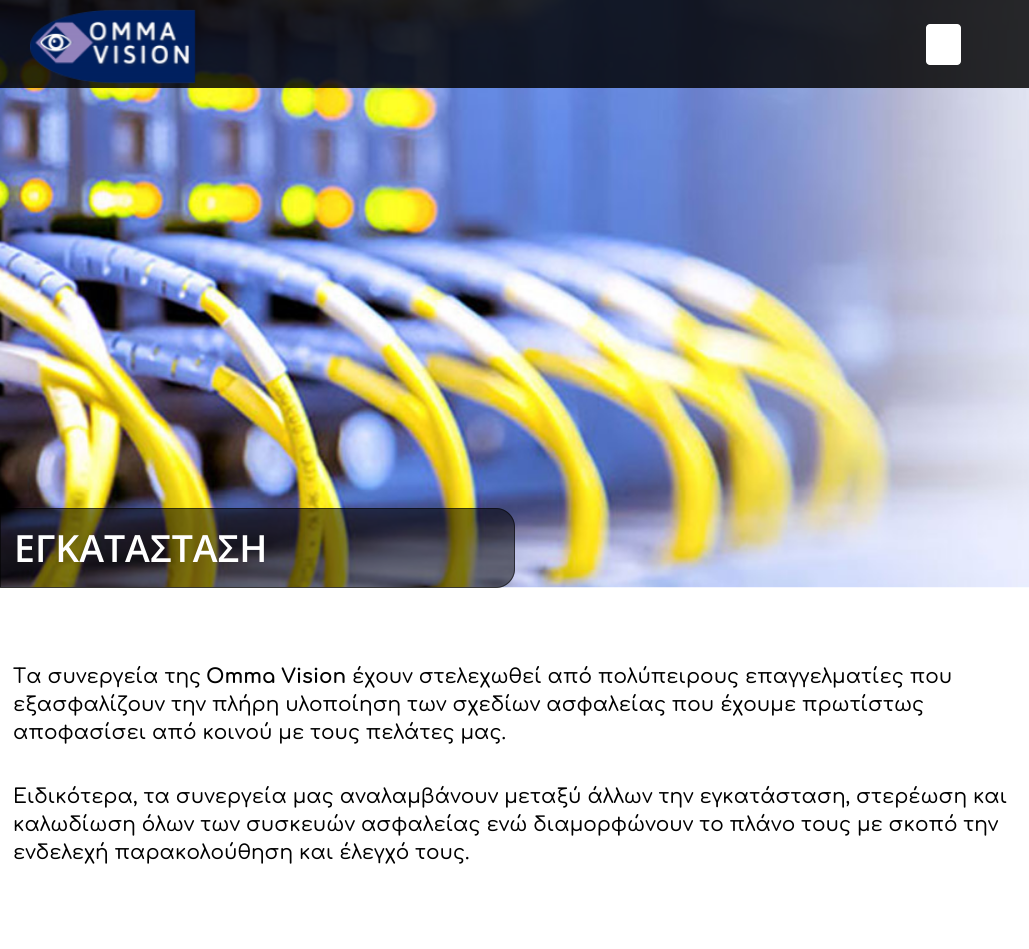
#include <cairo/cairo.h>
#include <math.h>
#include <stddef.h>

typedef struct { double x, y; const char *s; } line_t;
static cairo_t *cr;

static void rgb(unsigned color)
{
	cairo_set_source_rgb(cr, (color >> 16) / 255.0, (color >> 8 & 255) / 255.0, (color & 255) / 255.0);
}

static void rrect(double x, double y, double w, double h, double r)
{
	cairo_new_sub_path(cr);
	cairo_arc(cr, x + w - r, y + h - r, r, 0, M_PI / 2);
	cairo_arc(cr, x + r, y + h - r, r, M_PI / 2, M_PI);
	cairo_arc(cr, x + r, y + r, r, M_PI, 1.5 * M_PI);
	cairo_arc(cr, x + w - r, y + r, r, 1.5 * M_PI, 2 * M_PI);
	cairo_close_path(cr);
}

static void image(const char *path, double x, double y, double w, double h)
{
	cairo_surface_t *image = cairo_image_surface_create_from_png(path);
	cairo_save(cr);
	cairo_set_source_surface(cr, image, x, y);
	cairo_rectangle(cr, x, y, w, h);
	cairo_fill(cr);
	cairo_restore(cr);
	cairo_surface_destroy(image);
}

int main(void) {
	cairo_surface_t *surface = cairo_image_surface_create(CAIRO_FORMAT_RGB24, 1029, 949);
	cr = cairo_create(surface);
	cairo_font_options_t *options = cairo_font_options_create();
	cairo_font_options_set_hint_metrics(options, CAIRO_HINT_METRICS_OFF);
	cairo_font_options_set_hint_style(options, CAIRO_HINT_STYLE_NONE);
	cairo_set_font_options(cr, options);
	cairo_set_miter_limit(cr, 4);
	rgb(0xffffff);
	cairo_paint(cr);
	image("img/2.png", 0, 0, 1029, 588);
	cairo_set_source_rgba(cr, 0, 0, 0, 0.83);
	cairo_rectangle(cr, 0, 0, 1029, 88);
	cairo_fill(cr);
	image("img/1.png", 30, 9, 166, 75);
	rgb(0xffffff);
	rrect(926, 24, 35, 41, 4);
	cairo_fill(cr);
	cairo_set_source_rgba(cr, 0, 0, 0, 0.52);
	cairo_new_path(cr);
	cairo_move_to(cr, 0, 508);
	cairo_line_to(cr, 496, 508);
	cairo_curve_to(cr, 506.5, 508, 515, 516.5, 515, 527);
	cairo_line_to(cr, 515, 569);
	cairo_curve_to(cr, 515, 579.5, 506.5, 588, 496, 588);
	cairo_line_to(cr, 0, 588);
	cairo_close_path(cr);
	cairo_fill(cr);
	cairo_new_path(cr);
	cairo_move_to(cr, 0.5, 508.5);
	cairo_line_to(cr, 496, 508.5);
	cairo_curve_to(cr, 506, 508.5, 514.5, 517, 514.5, 527);
	cairo_line_to(cr, 514.5, 569);
	cairo_curve_to(cr, 514.5, 579, 506, 587.5, 496, 587.5);
	cairo_line_to(cr, 0.5, 587.5);
	cairo_close_path(cr);
	cairo_set_line_width(cr, 1);
	cairo_stroke(cr);
	cairo_select_font_face(cr, "Open Sans SemiBold", CAIRO_FONT_SLANT_NORMAL, CAIRO_FONT_WEIGHT_NORMAL);
	cairo_set_font_size(cr, 37.5);
	rgb(0xffffff);
	cairo_move_to(cr, 14, 562);
	cairo_show_text(cr, "ΕΓΚΑΤΑΣΤΑΣΗ");
	cairo_select_font_face(cr, "Comfortaa Medium", CAIRO_FONT_SLANT_NORMAL, CAIRO_FONT_WEIGHT_NORMAL);
	cairo_set_font_size(cr, 20);
	rgb(0x000000);
	cairo_move_to(cr, 13, 683);
	cairo_show_text(cr, "Τα συνεργεία της");
	cairo_select_font_face(cr, "Comfortaa", CAIRO_FONT_SLANT_NORMAL, CAIRO_FONT_WEIGHT_BOLD);
	cairo_move_to(cr, 206, 683);
	cairo_show_text(cr, "Omma Vision");
	cairo_select_font_face(cr, "Comfortaa Medium", CAIRO_FONT_SLANT_NORMAL, CAIRO_FONT_WEIGHT_NORMAL);
	{
		static const line_t items[] = {
			{352, 683, "έχουν στελεχωθεί από πολύπειρους επαγγελματίες που"},
			{13, 711, "εξασφαλίζουν την πλήρη υλοποίηση των σχεδίων ασφαλείας που έχουμε πρωτίστως"},
			{13, 739, "αποφασίσει από κοινού με τους πελάτες μας."},
			{13, 803, "Ειδικότερα, τα συνεργεία μας αναλαμβάνουν μεταξύ άλλων την εγκατάσταση, στερέωση και"},
			{13, 831, "καλωδίωση όλων των συσκευών ασφαλείας ενώ διαμορφώνουν το πλάνο τους με σκοπό την"},
			{13, 859, "ενδελεχή παρακολούθηση και έλεγχό τους."},
		};
		for (size_t i = 0; i < sizeof items / sizeof *items; i++) {
			cairo_move_to(cr, items[i].x, items[i].y);
			cairo_show_text(cr, items[i].s);
		}
	}
	cairo_surface_write_to_png(surface, "page.png");
	cairo_font_options_destroy(options);
	cairo_destroy(cr);
	cairo_surface_destroy(surface);
	return 0;
}
